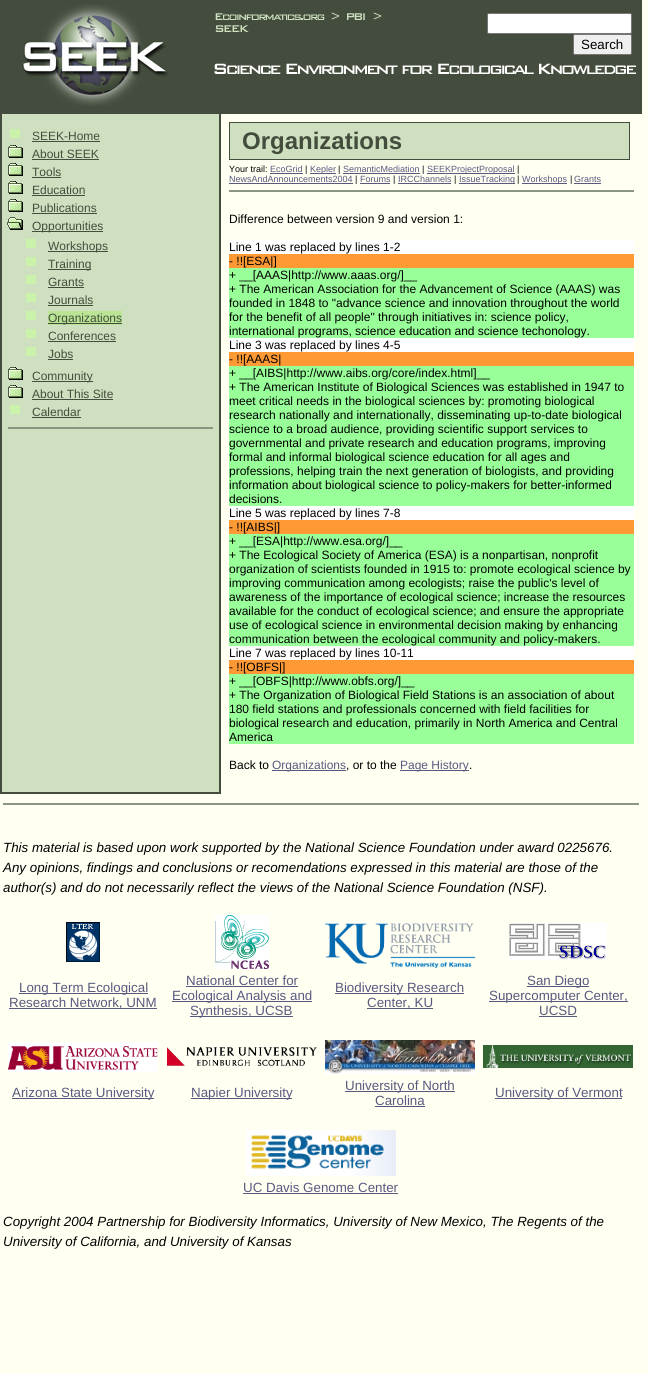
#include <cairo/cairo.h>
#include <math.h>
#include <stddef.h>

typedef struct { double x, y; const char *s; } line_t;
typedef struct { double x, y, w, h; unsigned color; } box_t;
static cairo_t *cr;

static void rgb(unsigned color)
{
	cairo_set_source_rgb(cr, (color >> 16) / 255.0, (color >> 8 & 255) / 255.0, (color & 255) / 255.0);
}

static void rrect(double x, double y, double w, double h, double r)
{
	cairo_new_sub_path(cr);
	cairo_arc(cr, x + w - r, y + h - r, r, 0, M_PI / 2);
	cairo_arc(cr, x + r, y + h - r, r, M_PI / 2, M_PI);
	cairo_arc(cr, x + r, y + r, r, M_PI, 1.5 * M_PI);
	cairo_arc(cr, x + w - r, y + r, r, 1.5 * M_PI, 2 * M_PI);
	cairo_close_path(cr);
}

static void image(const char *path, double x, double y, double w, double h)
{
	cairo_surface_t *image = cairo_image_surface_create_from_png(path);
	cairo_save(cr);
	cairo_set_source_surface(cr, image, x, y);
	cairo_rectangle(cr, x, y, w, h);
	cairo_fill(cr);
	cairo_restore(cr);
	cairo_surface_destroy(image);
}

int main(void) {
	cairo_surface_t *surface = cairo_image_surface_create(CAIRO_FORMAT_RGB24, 648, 1374);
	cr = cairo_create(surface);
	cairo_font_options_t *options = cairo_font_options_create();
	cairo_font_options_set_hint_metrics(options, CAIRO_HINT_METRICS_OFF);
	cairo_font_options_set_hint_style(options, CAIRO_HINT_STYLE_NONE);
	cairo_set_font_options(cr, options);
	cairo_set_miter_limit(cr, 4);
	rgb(0xfffff2);
	cairo_paint(cr);
	rgb(0x444d3d);
	cairo_rectangle(cr, 0, 0, 203, 114);
	cairo_fill(cr);
	image("img/1.png", 22, 4, 146, 102);
	cairo_rectangle(cr, 203, 0, 439, 114);
	cairo_fill(cr);
	image("img/2.png", 215, 13, 110, 7);
	image("img/3.png", 331, 12, 9, 8);
	image("img/4.png", 347, 13, 18, 7);
	image("img/3.png", 373, 12, 9, 8);
	image("img/5.png", 215, 25, 34, 7);
	rgb(0xffffff);
	rrect(487.5, 13.5, 144, 20, 1.5);
	cairo_fill_preserve(cr);
	rgb(0x767676);
	cairo_set_line_width(cr, 1);
	cairo_stroke(cr);
	rgb(0xefefef);
	rrect(573.5, 34.5, 58, 20, 1.5);
	cairo_fill_preserve(cr);
	rgb(0x767676);
	cairo_stroke(cr);
	image("img/6.png", 214, 63, 422, 11);
	{
		static const box_t items[] = {
			{2, 114, 217, 678, 0xcee0bf},
			{219, 114, 2, 680, 0x444d3d},
			{0, 792, 221, 2, 0x444d3d},
			{0, 114, 2, 680, 0x444d3d},
			{10, 129, 10, 9, 0xcaf2aa},
			{32, 141, 68, 1, 0x444d3d},
		};
		for (size_t i = 0; i < sizeof items / sizeof *items; i++) {
			rgb(items[i].color);
			cairo_rectangle(cr, items[i].x, items[i].y, items[i].w, items[i].h);
			cairo_fill(cr);
		}
	}
	image("img/7.png", 8, 145, 15, 13);
	cairo_rectangle(cr, 32, 159, 67, 1);
	cairo_fill(cr);
	image("img/7.png", 8, 163, 15, 13);
	cairo_rectangle(cr, 32, 177, 29, 1);
	cairo_fill(cr);
	image("img/7.png", 8, 181, 15, 13);
	cairo_rectangle(cr, 32, 195, 53, 1);
	cairo_fill(cr);
	image("img/7.png", 8, 199, 15, 13);
	cairo_rectangle(cr, 32, 213, 65, 1);
	cairo_fill(cr);
	image("img/8.png", 7, 217, 16, 13);
	{
		static const box_t items[] = {
			{32, 231, 71, 1, 0x444d3d},
			{26, 239, 10, 9, 0xcaf2aa},
			{48, 251, 60, 1, 0x444d3d},
			{26, 257, 10, 9, 0xcaf2aa},
			{48, 269, 43, 1, 0x444d3d},
			{26, 275, 10, 9, 0xcaf2aa},
			{48, 287, 36, 1, 0x444d3d},
			{26, 293, 10, 9, 0xcaf2aa},
			{48, 305, 45, 1, 0x444d3d},
			{26, 311, 10, 9, 0xcaf2aa},
			{48, 311, 74, 14, 0xb9e595},
			{48, 323, 74, 1, 0x444d3d},
			{26, 329, 10, 9, 0xcaf2aa},
			{48, 341, 68, 1, 0x444d3d},
			{26, 347, 10, 9, 0xcaf2aa},
			{48, 359, 25, 1, 0x444d3d},
		};
		for (size_t i = 0; i < sizeof items / sizeof *items; i++) {
			rgb(items[i].color);
			cairo_rectangle(cr, items[i].x, items[i].y, items[i].w, items[i].h);
			cairo_fill(cr);
		}
	}
	image("img/7.png", 8, 367, 15, 13);
	cairo_rectangle(cr, 32, 381, 61, 1);
	cairo_fill(cr);
	image("img/7.png", 8, 385, 15, 13);
	{
		static const box_t items[] = {
			{32, 399, 81, 1, 0x444d3d},
			{10, 405, 10, 9, 0xcaf2aa},
			{32, 417, 49, 1, 0x444d3d},
			{8, 427, 205, 2, 0x8a9680},
		};
		for (size_t i = 0; i < sizeof items / sizeof *items; i++) {
			rgb(items[i].color);
			cairo_rectangle(cr, items[i].x, items[i].y, items[i].w, items[i].h);
			cairo_fill(cr);
		}
	}
	rgb(0xcee0bf);
	cairo_rectangle(cr, 229.5, 122.5, 400, 37);
	cairo_fill_preserve(cr);
	rgb(0x444d3d);
	cairo_stroke(cr);
	{
		static const box_t items[] = {
			{270, 173, 33, 1, 0x595980},
			{310, 173, 26, 1, 0x595980},
			{343, 173, 77, 1, 0x595980},
			{427, 173, 88, 1, 0x595980},
			{229, 183, 124, 1, 0x595980},
			{360, 183, 30, 1, 0x595980},
			{398, 183, 53, 1, 0x595980},
			{459, 183, 56, 1, 0x595980},
			{522, 183, 45, 1, 0x595980},
			{574, 183, 27, 1, 0x595980},
			{229, 190, 405, 2, 0x8a9680},
			{229, 240, 405, 14, 0xffffff},
			{229, 254, 405, 14, 0xff9933},
			{229, 268, 405, 70, 0x99ff99},
			{229, 338, 405, 14, 0xffffff},
			{229, 352, 405, 14, 0xff9933},
			{229, 366, 405, 140, 0x99ff99},
			{229, 506, 405, 14, 0xffffff},
			{229, 520, 405, 14, 0xff9933},
			{229, 534, 405, 112, 0x99ff99},
			{229, 646, 405, 14, 0xffffff},
			{229, 660, 405, 14, 0xff9933},
			{229, 674, 405, 70, 0x99ff99},
			{272, 770, 74, 1, 0x595980},
			{400, 770, 69, 1, 0x595980},
			{3, 803, 636, 2, 0x8a9680},
		};
		for (size_t i = 0; i < sizeof items / sizeof *items; i++) {
			rgb(items[i].color);
			cairo_rectangle(cr, items[i].x, items[i].y, items[i].w, items[i].h);
			cairo_fill(cr);
		}
	}
	image("img/9.png", 66, 922, 34, 40);
	image("img/10.png", 215, 915, 54, 54);
	image("img/11.png", 325, 923, 150, 45);
	image("img/12.png", 509, 923, 98, 37);
	{
		static const box_t items[] = {
			{19, 993, 129, 1, 0x595980},
			{9, 1008, 148, 1, 0x595980},
			{186, 986, 112, 1, 0x595980},
			{172, 1001, 140, 1, 0x595980},
			{190, 1016, 103, 1, 0x595980},
			{335, 993, 129, 1, 0x595980},
			{367, 1008, 66, 1, 0x595980},
			{527, 986, 62, 1, 0x595980},
			{489, 1001, 139, 1, 0x595980},
			{539, 1016, 38, 1, 0x595980},
		};
		for (size_t i = 0; i < sizeof items / sizeof *items; i++) {
			rgb(items[i].color);
			cairo_rectangle(cr, items[i].x, items[i].y, items[i].w, items[i].h);
			cairo_fill(cr);
		}
	}
	image("img/13.png", 8, 1042, 150, 30);
	image("img/14.png", 167, 1047, 150, 19);
	image("img/15.png", 325, 1040, 150, 34);
	image("img/16.png", 483, 1045, 150, 23);
	{
		static const box_t items[] = {
			{12, 1098, 142, 1, 0x595980},
			{191, 1098, 101, 1, 0x595980},
			{345, 1091, 110, 1, 0x595980},
			{375, 1106, 50, 1, 0x595980},
			{495, 1098, 127, 1, 0x595980},
		};
		for (size_t i = 0; i < sizeof items / sizeof *items; i++) {
			rgb(items[i].color);
			cairo_rectangle(cr, items[i].x, items[i].y, items[i].w, items[i].h);
			cairo_fill(cr);
		}
	}
	image("img/17.png", 246, 1130, 150, 46);
	cairo_rectangle(cr, 243, 1193, 155, 1);
	cairo_fill(cr);
	cairo_select_font_face(cr, "Liberation Sans", CAIRO_FONT_SLANT_NORMAL, CAIRO_FONT_WEIGHT_NORMAL);
	cairo_set_font_size(cr, 13.35);
	rgb(0x000000);
	cairo_move_to(cr, 581, 49);
	cairo_show_text(cr, "Search");
	cairo_set_font_size(cr, 12);
	rgb(0x444d3d);
	{
		static const line_t items[] = {
			{32, 140, "SEEK-Home"},
			{32, 158, "About SEEK"},
			{32, 176, "Tools"},
			{32, 194, "Education"},
			{32, 212, "Publications"},
			{32, 230, "Opportunities"},
			{48, 250, "Workshops"},
			{48, 268, "Training"},
			{48, 286, "Grants"},
			{48, 304, "Journals"},
			{48, 322, "Organizations"},
			{48, 340, "Conferences"},
			{48, 358, "Jobs"},
			{32, 380, "Community"},
			{32, 398, "About This Site"},
			{32, 416, "Calendar"},
		};
		for (size_t i = 0; i < sizeof items / sizeof *items; i++) {
			cairo_move_to(cr, items[i].x, items[i].y);
			cairo_show_text(cr, items[i].s);
		}
	}
	cairo_select_font_face(cr, "Liberation Sans", CAIRO_FONT_SLANT_NORMAL, CAIRO_FONT_WEIGHT_BOLD);
	cairo_set_font_size(cr, 24);
	cairo_move_to(cr, 242, 149);
	cairo_show_text(cr, "Organizations");
	cairo_select_font_face(cr, "Liberation Sans", CAIRO_FONT_SLANT_NORMAL, CAIRO_FONT_WEIGHT_NORMAL);
	cairo_set_font_size(cr, 9);
	rgb(0x000000);
	cairo_move_to(cr, 229, 172);
	cairo_show_text(cr, "Your trail:");
	rgb(0x595980);
	cairo_move_to(cr, 270, 172);
	cairo_show_text(cr, "EcoGrid");
	rgb(0x000000);
	cairo_move_to(cr, 305, 172);
	cairo_show_text(cr, "|");
	rgb(0x595980);
	cairo_move_to(cr, 310, 172);
	cairo_show_text(cr, "Kepler");
	rgb(0x000000);
	cairo_move_to(cr, 338, 172);
	cairo_show_text(cr, "|");
	rgb(0x595980);
	cairo_move_to(cr, 343, 172);
	cairo_show_text(cr, "SemanticMediation");
	rgb(0x000000);
	cairo_move_to(cr, 422, 172);
	cairo_show_text(cr, "|");
	rgb(0x595980);
	cairo_move_to(cr, 427, 172);
	cairo_show_text(cr, "SEEKProjectProposal");
	rgb(0x000000);
	cairo_move_to(cr, 517, 172);
	cairo_show_text(cr, "|");
	rgb(0x595980);
	cairo_move_to(cr, 229, 182);
	cairo_show_text(cr, "NewsAndAnnouncements2004");
	rgb(0x000000);
	cairo_move_to(cr, 355, 182);
	cairo_show_text(cr, "|");
	rgb(0x595980);
	cairo_move_to(cr, 360, 182);
	cairo_show_text(cr, "Forums");
	rgb(0x000000);
	cairo_move_to(cr, 393, 182);
	cairo_show_text(cr, "|");
	rgb(0x595980);
	cairo_move_to(cr, 398, 182);
	cairo_show_text(cr, "IRCChannels");
	rgb(0x000000);
	cairo_move_to(cr, 454, 182);
	cairo_show_text(cr, "|");
	rgb(0x595980);
	cairo_move_to(cr, 459, 182);
	cairo_show_text(cr, "IssueTracking");
	rgb(0x000000);
	cairo_move_to(cr, 517, 182);
	cairo_show_text(cr, "|");
	rgb(0x595980);
	cairo_move_to(cr, 522, 182);
	cairo_show_text(cr, "Workshops");
	rgb(0x000000);
	cairo_move_to(cr, 570, 182);
	cairo_show_text(cr, "|");
	rgb(0x595980);
	cairo_move_to(cr, 574, 182);
	cairo_show_text(cr, "Grants");
	cairo_set_font_size(cr, 12);
	rgb(0x000000);
	{
		static const line_t items[] = {
			{229, 223, "Difference between version 9 and version 1:"},
			{229, 251, "Line 1 was replaced by lines 1-2"},
			{229, 265, "- !![ESA|]"},
			{229, 279, "+ __[AAAS|http://www.aaas.org/]__"},
			{229, 293, "+ The American Association for the Advancement of Science (AAAS) was"},
			{229, 307, "founded in 1848 to \"advance science and innovation throughout the world"},
			{229, 321, "for the benefit of all people\" through initiatives in: science policy,"},
			{229, 335, "international programs, science education and science techonology."},
			{229, 349, "Line 3 was replaced by lines 4-5"},
			{229, 363, "- !![AAAS|"},
			{229, 377, "+ __[AIBS|http://www.aibs.org/core/index.html]__"},
			{229, 391, "+ The American Institute of Biological Sciences was established in 1947 to"},
			{229, 405, "meet critical needs in the biological sciences by: promoting biological"},
			{229, 419, "research nationally and internationally, disseminating up-to-date biological"},
			{229, 433, "science to a broad audience, providing scientific support services to"},
			{229, 447, "governmental and private research and education programs, improving"},
			{229, 461, "formal and informal biological science education for all ages and"},
			{229, 475, "professions, helping train the next generation of biologists, and providing"},
			{229, 489, "information about biological science to policy-makers for better-informed"},
			{229, 503, "decisions."},
			{229, 517, "Line 5 was replaced by lines 7-8"},
			{229, 531, "- !![AIBS|]"},
			{229, 545, "+ __[ESA|http://www.esa.org/]__"},
			{229, 559, "+ The Ecological Society of America (ESA) is a nonpartisan, nonprofit"},
			{229, 573, "organization of scientists founded in 1915 to: promote ecological science by"},
			{229, 587, "improving communication among ecologists; raise the public's level of"},
			{229, 601, "awareness of the importance of ecological science; increase the resources"},
			{229, 615, "available for the conduct of ecological science; and ensure the appropriate"},
			{229, 629, "use of ecological science in environmental decision making by enhancing"},
			{229, 643, "communication between the ecological community and policy-makers."},
			{229, 657, "Line 7 was replaced by lines 10-11"},
			{229, 671, "- !![OBFS|]"},
			{229, 685, "+ __[OBFS|http://www.obfs.org/]__"},
			{229, 699, "+ The Organization of Biological Field Stations is an association of about"},
			{229, 713, "180 field stations and professionals concerned with field facilities for"},
			{229, 727, "biological research and education, primarily in North America and Central"},
			{229, 741, "America"},
			{229, 769, "Back to"},
		};
		for (size_t i = 0; i < sizeof items / sizeof *items; i++) {
			cairo_move_to(cr, items[i].x, items[i].y);
			cairo_show_text(cr, items[i].s);
		}
	}
	rgb(0x595980);
	cairo_move_to(cr, 272, 769);
	cairo_show_text(cr, "Organizations");
	rgb(0x000000);
	cairo_move_to(cr, 346, 769);
	cairo_show_text(cr, ", or to the");
	rgb(0x595980);
	cairo_move_to(cr, 400, 769);
	cairo_show_text(cr, "Page History");
	rgb(0x000000);
	cairo_move_to(cr, 469, 769);
	cairo_show_text(cr, ".");
	cairo_select_font_face(cr, "Liberation Sans", CAIRO_FONT_SLANT_ITALIC, CAIRO_FONT_WEIGHT_NORMAL);
	cairo_set_font_size(cr, 13.35);
	{
		static const line_t items[] = {
			{3, 852, "This material is based upon work supported by the National Science Foundation under award 0225676."},
			{3, 872, "Any opinions, findings and conclusions or recomendations expressed in this material are those of the"},
			{3, 892, "author(s) and do not necessarily reflect the views of the National Science Foundation (NSF)."},
		};
		for (size_t i = 0; i < sizeof items / sizeof *items; i++) {
			cairo_move_to(cr, items[i].x, items[i].y);
			cairo_show_text(cr, items[i].s);
		}
	}
	cairo_select_font_face(cr, "Liberation Sans", CAIRO_FONT_SLANT_NORMAL, CAIRO_FONT_WEIGHT_NORMAL);
	rgb(0x595980);
	{
		static const line_t items[] = {
			{19, 992, "Long Term Ecological"},
			{9, 1007, "Research Network, UNM"},
			{186, 985, "National Center for"},
			{172, 1000, "Ecological Analysis and"},
			{190, 1015, "Synthesis, UCSB"},
			{335, 992, "Biodiversity Research"},
			{367, 1007, "Center, KU"},
			{527, 985, "San Diego"},
			{489, 1000, "Supercomputer Center,"},
			{539, 1015, "UCSD"},
			{12, 1097, "Arizona State University"},
			{191, 1097, "Napier University"},
			{345, 1090, "University of North"},
			{375, 1105, "Carolina"},
			{495, 1097, "University of Vermont"},
			{243, 1192, "UC Davis Genome Center"},
		};
		for (size_t i = 0; i < sizeof items / sizeof *items; i++) {
			cairo_move_to(cr, items[i].x, items[i].y);
			cairo_show_text(cr, items[i].s);
		}
	}
	cairo_select_font_face(cr, "Liberation Sans", CAIRO_FONT_SLANT_ITALIC, CAIRO_FONT_WEIGHT_NORMAL);
	rgb(0x000000);
	cairo_move_to(cr, 3, 1226);
	cairo_show_text(cr, "Copyright 2004 Partnership for Biodiversity Informatics, University of New Mexico, The Regents of the");
	cairo_move_to(cr, 3, 1246);
	cairo_show_text(cr, "University of California, and University of Kansas");
	cairo_surface_write_to_png(surface, "page.png");
	cairo_font_options_destroy(options);
	cairo_destroy(cr);
	cairo_surface_destroy(surface);
	return 0;
}
